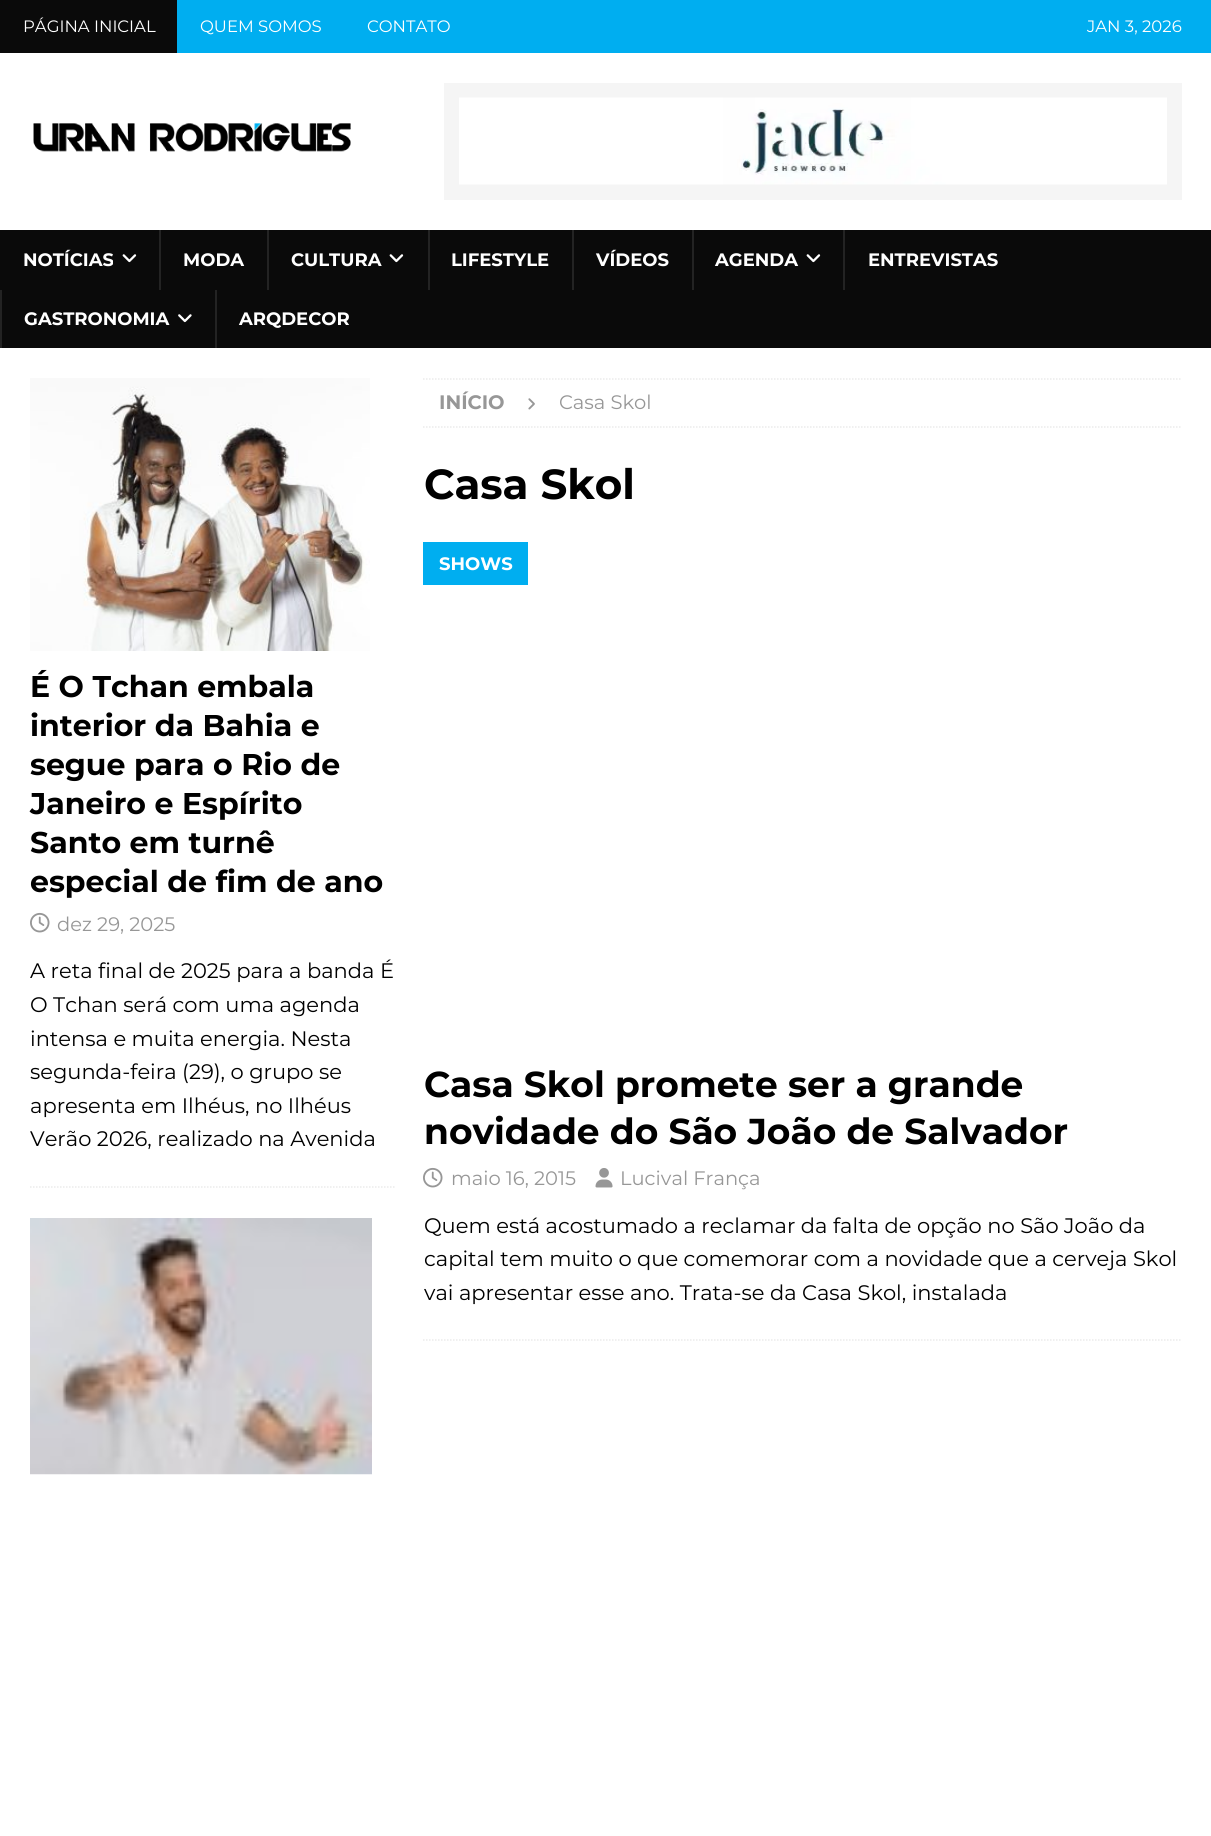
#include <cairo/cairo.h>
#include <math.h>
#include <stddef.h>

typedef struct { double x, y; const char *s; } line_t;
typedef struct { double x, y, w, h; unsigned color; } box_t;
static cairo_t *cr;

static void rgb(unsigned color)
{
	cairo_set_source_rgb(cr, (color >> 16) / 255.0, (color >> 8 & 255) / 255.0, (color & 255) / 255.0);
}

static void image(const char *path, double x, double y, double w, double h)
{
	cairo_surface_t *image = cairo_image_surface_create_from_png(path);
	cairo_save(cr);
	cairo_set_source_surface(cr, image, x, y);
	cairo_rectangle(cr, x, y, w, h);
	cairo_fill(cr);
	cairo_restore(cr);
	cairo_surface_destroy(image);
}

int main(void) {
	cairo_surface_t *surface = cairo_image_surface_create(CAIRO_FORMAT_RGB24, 1211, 1836);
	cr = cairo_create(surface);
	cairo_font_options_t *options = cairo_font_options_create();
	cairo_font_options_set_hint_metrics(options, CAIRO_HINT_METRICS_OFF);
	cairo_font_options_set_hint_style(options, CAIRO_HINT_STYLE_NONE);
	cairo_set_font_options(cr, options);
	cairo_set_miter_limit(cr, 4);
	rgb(0x00aef0);
	cairo_paint(cr);
	rgb(0x0a0a0a);
	cairo_rectangle(cr, 0, 0, 177, 53);
	cairo_fill(cr);
	rgb(0xffffff);
	cairo_rectangle(cr, 0, 53, 1211, 177);
	cairo_fill(cr);
	image("img/1.png", 33, 123, 318, 29);
	rgb(0xf5f5f5);
	cairo_rectangle(cr, 444, 83, 738, 117);
	cairo_fill(cr);
	image("img/2.png", 459, 97, 708, 88);
	rgb(0x0a0a0a);
	cairo_rectangle(cr, 0, 230, 1211, 118);
	cairo_fill(cr);
	image("img/3.png", 122, 254, 15, 9);
	rgb(0x232323);
	cairo_rectangle(cr, 159, 230, 2, 60);
	cairo_fill(cr);
	cairo_rectangle(cr, 267, 230, 2, 60);
	cairo_fill(cr);
	image("img/3.png", 389, 254, 15, 9);
	{
		static const box_t items[] = {
			{428, 230, 2, 60, 0x232323},
			{572, 230, 2, 60, 0x232323},
			{692, 230, 2, 60, 0x232323},
		};
		for (size_t i = 0; i < sizeof items / sizeof *items; i++) {
			rgb(items[i].color);
			cairo_rectangle(cr, items[i].x, items[i].y, items[i].w, items[i].h);
			cairo_fill(cr);
		}
	}
	image("img/3.png", 806, 254, 15, 9);
	cairo_rectangle(cr, 843, 230, 2, 60);
	cairo_fill(cr);
	cairo_rectangle(cr, 0, 290, 2, 58);
	cairo_fill(cr);
	image("img/4.png", 178, 314, 14, 9);
	cairo_rectangle(cr, 215, 290, 2, 58);
	cairo_fill(cr);
	rgb(0xffffff);
	cairo_rectangle(cr, 0, 348, 1211, 1488);
	cairo_fill(cr);
	cairo_new_path(cr);
	cairo_move_to(cr, 30, 1187);
	cairo_line_to(cr, 394.5, 1187);
	rgb(0xebebeb);
	cairo_set_line_width(cr, 1.5);
	cairo_set_dash(cr, (double[]){1.5, 1.5}, 2, 0);
	cairo_stroke(cr);
	image("img/5.png", 30, 378, 340, 273);
	image("img/6.png", 30, 912, 20, 21);
	image("img/7.png", 30, 1218, 342, 257);
	cairo_new_path(cr);
	cairo_move_to(cr, 423, 379);
	cairo_line_to(cr, 1182, 379);
	cairo_stroke(cr);
	cairo_new_path(cr);
	cairo_move_to(cr, 423, 427);
	cairo_line_to(cr, 1182, 427);
	cairo_stroke(cr);
	image("img/8.png", 528, 398, 7, 12);
	cairo_new_path(cr);
	cairo_move_to(cr, 423, 1340);
	cairo_line_to(cr, 1182, 1340);
	cairo_stroke(cr);
	rgb(0x00aef0);
	cairo_rectangle(cr, 423, 542, 105, 43);
	cairo_fill(cr);
	image("img/6.png", 423, 1167, 20, 21);
	image("img/9.png", 595, 1168, 18, 20);
	cairo_select_font_face(cr, "Montserrat", CAIRO_FONT_SLANT_NORMAL, CAIRO_FONT_WEIGHT_NORMAL);
	cairo_set_font_size(cr, 16.5);
	rgb(0xffffff);
	{
		static const line_t items[] = {
			{23, 32, "PÁGINA INICIAL"},
			{200, 32, "QUEM SOMOS"},
			{367, 32, "CONTATO"},
			{1087, 32, "JAN 3, 2026"},
		};
		for (size_t i = 0; i < sizeof items / sizeof *items; i++) {
			cairo_move_to(cr, items[i].x, items[i].y);
			cairo_show_text(cr, items[i].s);
		}
	}
	cairo_select_font_face(cr, "Montserrat", CAIRO_FONT_SLANT_NORMAL, CAIRO_FONT_WEIGHT_BOLD);
	cairo_set_font_size(cr, 18);
	{
		static const line_t items[] = {
			{23, 266, "NOTÍCIAS"},
			{183, 266, "MODA"},
			{291, 266, "CULTURA"},
			{451, 266, "LIFESTYLE"},
			{596, 266, "VÍDEOS"},
			{715, 266, "AGENDA"},
			{868, 266, "ENTREVISTAS"},
			{24, 325, "GASTRONOMIA"},
			{239, 325, "ARQDECOR"},
		};
		for (size_t i = 0; i < sizeof items / sizeof *items; i++) {
			cairo_move_to(cr, items[i].x, items[i].y);
			cairo_show_text(cr, items[i].s);
		}
	}
	cairo_set_font_size(cr, 30);
	rgb(0x000000);
	{
		static const line_t items[] = {
			{30, 697, "É O Tchan embala"},
			{30, 736, "interior da Bahia e"},
			{30, 775, "segue para o Rio de"},
			{30, 814, "Janeiro e Espírito"},
			{30, 853, "Santo em turnê"},
			{30, 892, "especial de fim de ano"},
		};
		for (size_t i = 0; i < sizeof items / sizeof *items; i++) {
			cairo_move_to(cr, items[i].x, items[i].y);
			cairo_show_text(cr, items[i].s);
		}
	}
	cairo_select_font_face(cr, "Montserrat", CAIRO_FONT_SLANT_NORMAL, CAIRO_FONT_WEIGHT_NORMAL);
	cairo_set_font_size(cr, 19.5);
	rgb(0x979797);
	cairo_move_to(cr, 57, 931);
	cairo_show_text(cr, "dez 29, 2025");
	cairo_set_font_size(cr, 21);
	rgb(0x000000);
	{
		static const line_t items[] = {
			{30, 978, "A reta final de 2025 para a banda É"},
			{30, 1012, "O Tchan será com uma agenda"},
			{30, 1046, "intensa e muita energia. Nesta"},
			{30, 1079, "segunda-feira (29), o grupo se"},
			{30, 1113, "apresenta em Ilhéus, no Ilhéus"},
			{30, 1146, "Verão 2026, realizado na Avenida"},
		};
		for (size_t i = 0; i < sizeof items / sizeof *items; i++) {
			cairo_move_to(cr, items[i].x, items[i].y);
			cairo_show_text(cr, items[i].s);
		}
	}
	cairo_select_font_face(cr, "Montserrat", CAIRO_FONT_SLANT_NORMAL, CAIRO_FONT_WEIGHT_BOLD);
	cairo_set_font_size(cr, 19.5);
	rgb(0x979797);
	cairo_move_to(cr, 439, 409);
	cairo_show_text(cr, "INÍCIO");
	cairo_select_font_face(cr, "Montserrat", CAIRO_FONT_SLANT_NORMAL, CAIRO_FONT_WEIGHT_NORMAL);
	cairo_move_to(cr, 559, 409);
	cairo_show_text(cr, "Casa Skol");
	cairo_select_font_face(cr, "Montserrat", CAIRO_FONT_SLANT_NORMAL, CAIRO_FONT_WEIGHT_BOLD);
	cairo_set_font_size(cr, 42);
	rgb(0x000000);
	cairo_move_to(cr, 424, 499);
	cairo_show_text(cr, "Casa Skol");
	cairo_set_font_size(cr, 18);
	rgb(0xffffff);
	cairo_move_to(cr, 439, 570);
	cairo_show_text(cr, "SHOWS");
	cairo_set_font_size(cr, 36);
	rgb(0x000000);
	cairo_move_to(cr, 424, 1097);
	cairo_show_text(cr, "Casa Skol promete ser a grande");
	cairo_move_to(cr, 424, 1144);
	cairo_show_text(cr, "novidade do São João de Salvador");
	cairo_select_font_face(cr, "Montserrat", CAIRO_FONT_SLANT_NORMAL, CAIRO_FONT_WEIGHT_NORMAL);
	cairo_set_font_size(cr, 19.5);
	rgb(0x979797);
	cairo_move_to(cr, 451, 1185);
	cairo_show_text(cr, "maio 16, 2015");
	cairo_move_to(cr, 620, 1185);
	cairo_show_text(cr, "Lucival França");
	cairo_set_font_size(cr, 21);
	rgb(0x000000);
	{
		static const line_t items[] = {
			{424, 1233, "Quem está acostumado a reclamar da falta de opção no São João da"},
			{424, 1266, "capital tem muito o que comemorar com a novidade que a cerveja Skol"},
			{424, 1300, "vai apresentar esse ano. Trata-se da Casa Skol, instalada"},
		};
		for (size_t i = 0; i < sizeof items / sizeof *items; i++) {
			cairo_move_to(cr, items[i].x, items[i].y);
			cairo_show_text(cr, items[i].s);
		}
	}
	cairo_surface_write_to_png(surface, "page.png");
	cairo_font_options_destroy(options);
	cairo_destroy(cr);
	cairo_surface_destroy(surface);
	return 0;
}
